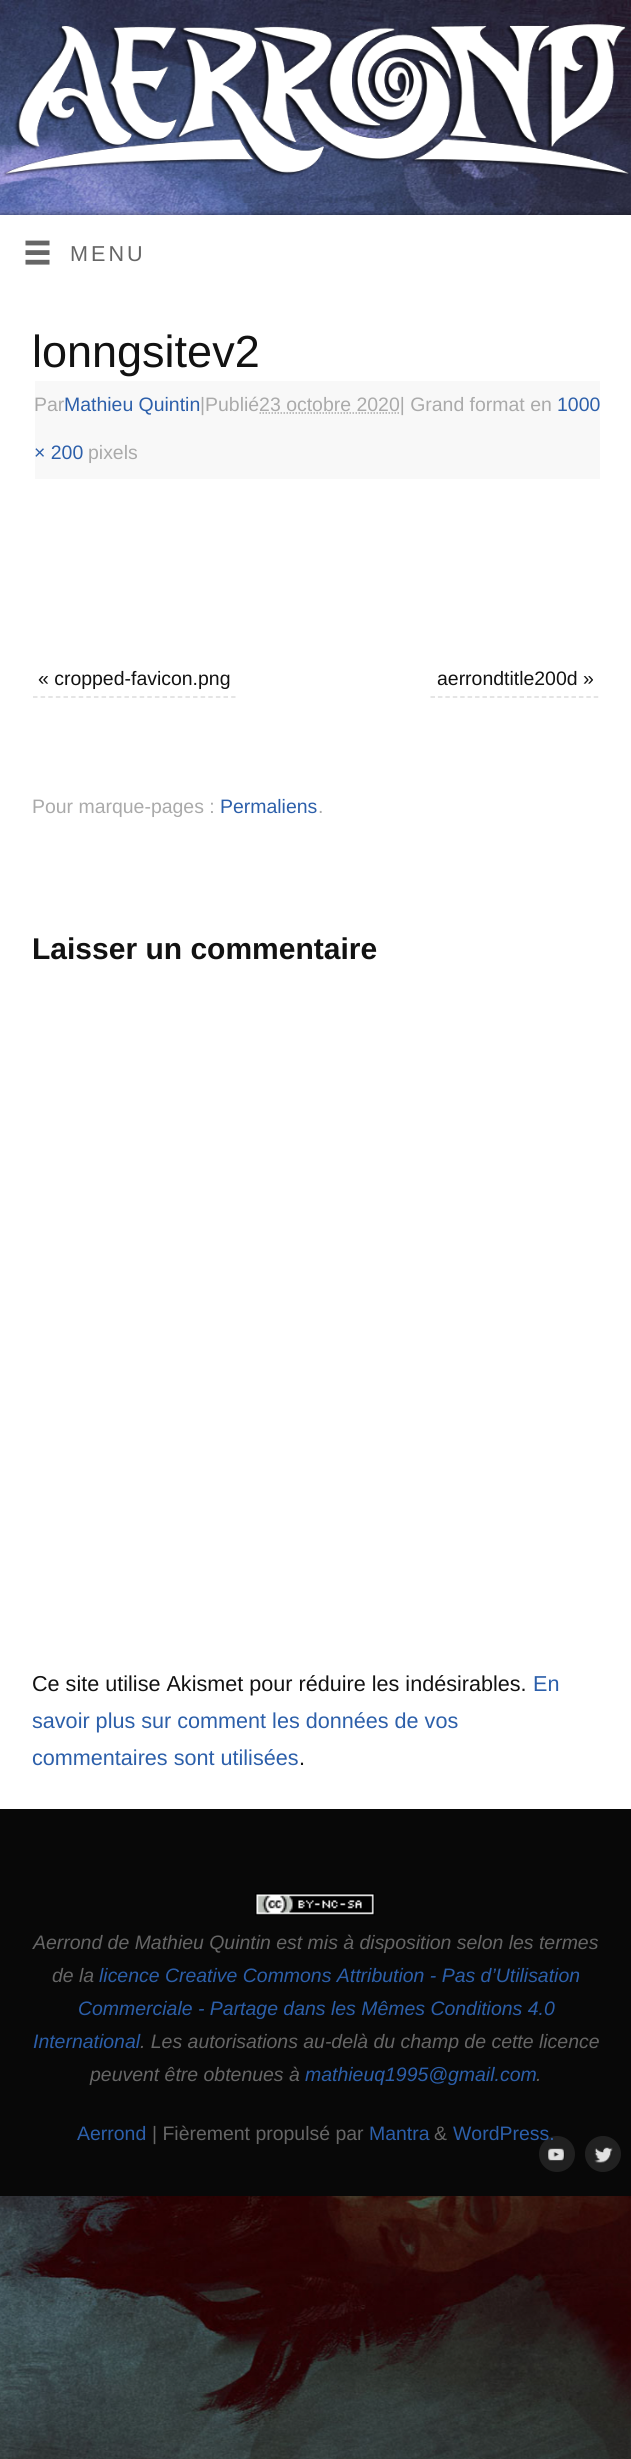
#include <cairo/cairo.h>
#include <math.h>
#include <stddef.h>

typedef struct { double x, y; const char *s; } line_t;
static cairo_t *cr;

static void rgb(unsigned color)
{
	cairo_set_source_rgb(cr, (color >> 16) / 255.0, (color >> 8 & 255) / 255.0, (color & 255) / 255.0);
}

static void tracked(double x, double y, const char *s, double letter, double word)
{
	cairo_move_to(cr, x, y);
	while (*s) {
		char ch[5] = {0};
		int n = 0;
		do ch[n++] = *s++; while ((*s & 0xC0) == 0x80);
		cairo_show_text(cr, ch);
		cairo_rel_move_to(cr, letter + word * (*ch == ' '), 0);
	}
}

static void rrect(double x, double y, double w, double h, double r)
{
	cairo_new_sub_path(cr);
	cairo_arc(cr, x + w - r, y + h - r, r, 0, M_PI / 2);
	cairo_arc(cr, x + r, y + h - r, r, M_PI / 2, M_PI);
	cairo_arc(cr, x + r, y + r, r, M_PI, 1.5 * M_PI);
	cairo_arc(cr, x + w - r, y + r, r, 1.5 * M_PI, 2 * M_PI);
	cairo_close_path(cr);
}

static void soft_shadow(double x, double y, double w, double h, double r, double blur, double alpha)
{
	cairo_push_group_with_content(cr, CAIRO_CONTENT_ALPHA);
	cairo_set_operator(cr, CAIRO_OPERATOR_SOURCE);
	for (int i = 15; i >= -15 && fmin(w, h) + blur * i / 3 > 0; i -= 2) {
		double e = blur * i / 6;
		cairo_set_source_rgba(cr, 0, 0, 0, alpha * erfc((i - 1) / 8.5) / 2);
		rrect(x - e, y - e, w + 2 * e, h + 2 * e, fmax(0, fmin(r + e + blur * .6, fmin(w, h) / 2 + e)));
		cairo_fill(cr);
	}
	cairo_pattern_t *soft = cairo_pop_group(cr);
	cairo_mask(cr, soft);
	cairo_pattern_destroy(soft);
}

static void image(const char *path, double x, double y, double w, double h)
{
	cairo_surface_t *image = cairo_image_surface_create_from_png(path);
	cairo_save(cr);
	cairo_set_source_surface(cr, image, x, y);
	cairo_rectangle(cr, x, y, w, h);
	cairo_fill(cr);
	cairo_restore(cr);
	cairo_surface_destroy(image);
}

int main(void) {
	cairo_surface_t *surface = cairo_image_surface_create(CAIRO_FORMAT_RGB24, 631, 2459);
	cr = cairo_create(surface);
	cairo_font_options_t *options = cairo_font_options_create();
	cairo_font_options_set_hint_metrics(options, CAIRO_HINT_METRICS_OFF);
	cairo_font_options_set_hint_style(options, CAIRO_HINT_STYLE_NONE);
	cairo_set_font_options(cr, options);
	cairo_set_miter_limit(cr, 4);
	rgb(0xffffff);
	cairo_paint(cr);
	image("img/1.png", 0, 0, 631, 2459);
	image("img/2.png", 2, 24, 627, 153);
	rgb(0x000000);
	soft_shadow(0, 215, 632, 75, 0, 4, 0.5);
	rgb(0xffffff);
	cairo_rectangle(cr, 0, 215, 631, 1594);
	cairo_fill(cr);
	image("img/3.png", 25, 240, 25, 25);
	rgb(0xf8f8f8);
	cairo_rectangle(cr, 35, 381, 565, 98);
	cairo_fill(cr);
	cairo_new_path(cr);
	cairo_move_to(cr, 259.5, 413);
	cairo_line_to(cr, 400, 413);
	rgb(0xaaaaaa);
	cairo_set_line_width(cr, 1.5);
	cairo_set_dash(cr, (double[]){1.5, 1.5}, 2, 0);
	cairo_stroke(cr);
	cairo_new_path(cr);
	cairo_move_to(cr, 33, 697);
	cairo_line_to(cr, 235.5, 697);
	rgb(0xdddddd);
	cairo_set_dash(cr, (double[]){4.5, 3.12}, 2, 0);
	cairo_stroke(cr);
	cairo_new_path(cr);
	cairo_move_to(cr, 430.5, 697);
	cairo_line_to(cr, 598.5, 697);
	cairo_set_dash(cr, (double[]){4.5, 2.92}, 2, 0);
	cairo_stroke(cr);
	rgb(0x080808);
	cairo_rectangle(cr, 0, 1809, 631, 387);
	cairo_fill(cr);
	image("img/4.png", 255, 1893, 120, 23);
	cairo_set_source_rgba(cr, 1, 1, 1, 0.1);
	cairo_arc(cr, 557, 2154, 18, 0, 2 * M_PI);
	cairo_fill(cr);
	image("img/5.png", 548, 2148, 17, 13);
	rgb(0x212121);
	cairo_arc(cr, 603, 2154, 18, 0, 2 * M_PI);
	cairo_fill(cr);
	image("img/6.png", 594, 2147, 19, 16);
	cairo_select_font_face(cr, "Liberation Sans", CAIRO_FONT_SLANT_NORMAL, CAIRO_FONT_WEIGHT_NORMAL);
	cairo_set_font_size(cr, 21.6);
	rgb(0x666666);
	tracked(70, 261, "MENU", 3, 0);
	cairo_set_font_size(cr, 45);
	rgb(0x121212);
	cairo_move_to(cr, 32, 367);
	cairo_show_text(cr, "lonngsitev2");
	cairo_set_font_size(cr, 19.45);
	rgb(0xaaaaaa);
	cairo_move_to(cr, 34, 411);
	cairo_show_text(cr, "Par");
	rgb(0x2c5faa);
	cairo_move_to(cr, 64, 411);
	cairo_show_text(cr, "Mathieu Quintin");
	rgb(0xaaaaaa);
	cairo_move_to(cr, 200, 411);
	cairo_show_text(cr, "|Publié23 octobre 2020| Grand format en");
	rgb(0x2c5faa);
	cairo_move_to(cr, 557, 411);
	cairo_show_text(cr, "1000");
	cairo_move_to(cr, 34, 459);
	cairo_show_text(cr, "× 200");
	rgb(0xaaaaaa);
	cairo_move_to(cr, 88, 459);
	cairo_show_text(cr, "pixels");
	rgb(0x121212);
	cairo_move_to(cr, 38, 685);
	cairo_show_text(cr, "« cropped-favicon.png");
	cairo_move_to(cr, 437, 685);
	cairo_show_text(cr, "aerrondtitle200d »");
	rgb(0xaaaaaa);
	cairo_move_to(cr, 32, 813);
	cairo_show_text(cr, "Pour marque-pages :");
	rgb(0x2c5faa);
	cairo_move_to(cr, 220, 813);
	cairo_show_text(cr, "Permaliens");
	rgb(0xaaaaaa);
	cairo_move_to(cr, 318, 813);
	cairo_show_text(cr, ".");
	cairo_select_font_face(cr, "Liberation Sans", CAIRO_FONT_SLANT_NORMAL, CAIRO_FONT_WEIGHT_BOLD);
	cairo_set_font_size(cr, 30);
	rgb(0x121212);
	cairo_move_to(cr, 32, 959);
	cairo_show_text(cr, "Laisser un commentaire");
	cairo_select_font_face(cr, "Liberation Sans", CAIRO_FONT_SLANT_NORMAL, CAIRO_FONT_WEIGHT_NORMAL);
	cairo_set_font_size(cr, 21.6);
	cairo_move_to(cr, 32, 1691);
	cairo_show_text(cr, "Ce site utilise Akismet pour réduire les indésirables.");
	rgb(0x2c5faa);
	{
		static const line_t items[] = {
			{533, 1691, "En"},
			{32, 1728, "savoir plus sur comment les données de vos"},
			{32, 1765, "commentaires sont utilisées"},
		};
		for (size_t i = 0; i < sizeof items / sizeof *items; i++) {
			cairo_move_to(cr, items[i].x, items[i].y);
			cairo_show_text(cr, items[i].s);
		}
	}
	rgb(0x121212);
	cairo_move_to(cr, 299, 1765);
	cairo_show_text(cr, ".");
	cairo_select_font_face(cr, "Liberation Sans", CAIRO_FONT_SLANT_ITALIC, CAIRO_FONT_WEIGHT_NORMAL);
	cairo_set_font_size(cr, 19.45);
	rgb(0x666666);
	cairo_move_to(cr, 33, 1949);
	cairo_show_text(cr, "Aerrond de Mathieu Quintin est mis à disposition selon les termes");
	cairo_move_to(cr, 52, 1982);
	cairo_show_text(cr, "de la");
	rgb(0x2c5faa);
	{
		static const line_t items[] = {
			{99, 1982, "licence Creative Commons Attribution - Pas d’Utilisation"},
			{78, 2015, "Commerciale - Partage dans les Mêmes Conditions 4.0"},
			{33, 2048, "International"},
		};
		for (size_t i = 0; i < sizeof items / sizeof *items; i++) {
			cairo_move_to(cr, items[i].x, items[i].y);
			cairo_show_text(cr, items[i].s);
		}
	}
	rgb(0x666666);
	cairo_move_to(cr, 140, 2048);
	cairo_show_text(cr, ". Les autorisations au-delà du champ de cette licence");
	cairo_move_to(cr, 90, 2081);
	cairo_show_text(cr, "peuvent être obtenues à");
	rgb(0x2c5faa);
	cairo_move_to(cr, 305, 2081);
	cairo_show_text(cr, "mathieuq1995@gmail.com");
	rgb(0x666666);
	cairo_move_to(cr, 536, 2081);
	cairo_show_text(cr, ".");
	cairo_select_font_face(cr, "Liberation Sans", CAIRO_FONT_SLANT_NORMAL, CAIRO_FONT_WEIGHT_NORMAL);
	rgb(0x2c5faa);
	cairo_move_to(cr, 77, 2140);
	cairo_show_text(cr, "Aerrond");
	rgb(0x666666);
	cairo_move_to(cr, 152, 2140);
	cairo_show_text(cr, "| Fièrement propulsé par");
	rgb(0x2c5faa);
	cairo_move_to(cr, 369, 2140);
	cairo_show_text(cr, "Mantra");
	rgb(0x666666);
	cairo_move_to(cr, 434, 2140);
	cairo_show_text(cr, "&");
	rgb(0x2c5faa);
	cairo_move_to(cr, 453, 2140);
	cairo_show_text(cr, "WordPress.");
	cairo_surface_write_to_png(surface, "page.png");
	cairo_font_options_destroy(options);
	cairo_destroy(cr);
	cairo_surface_destroy(surface);
	return 0;
}
